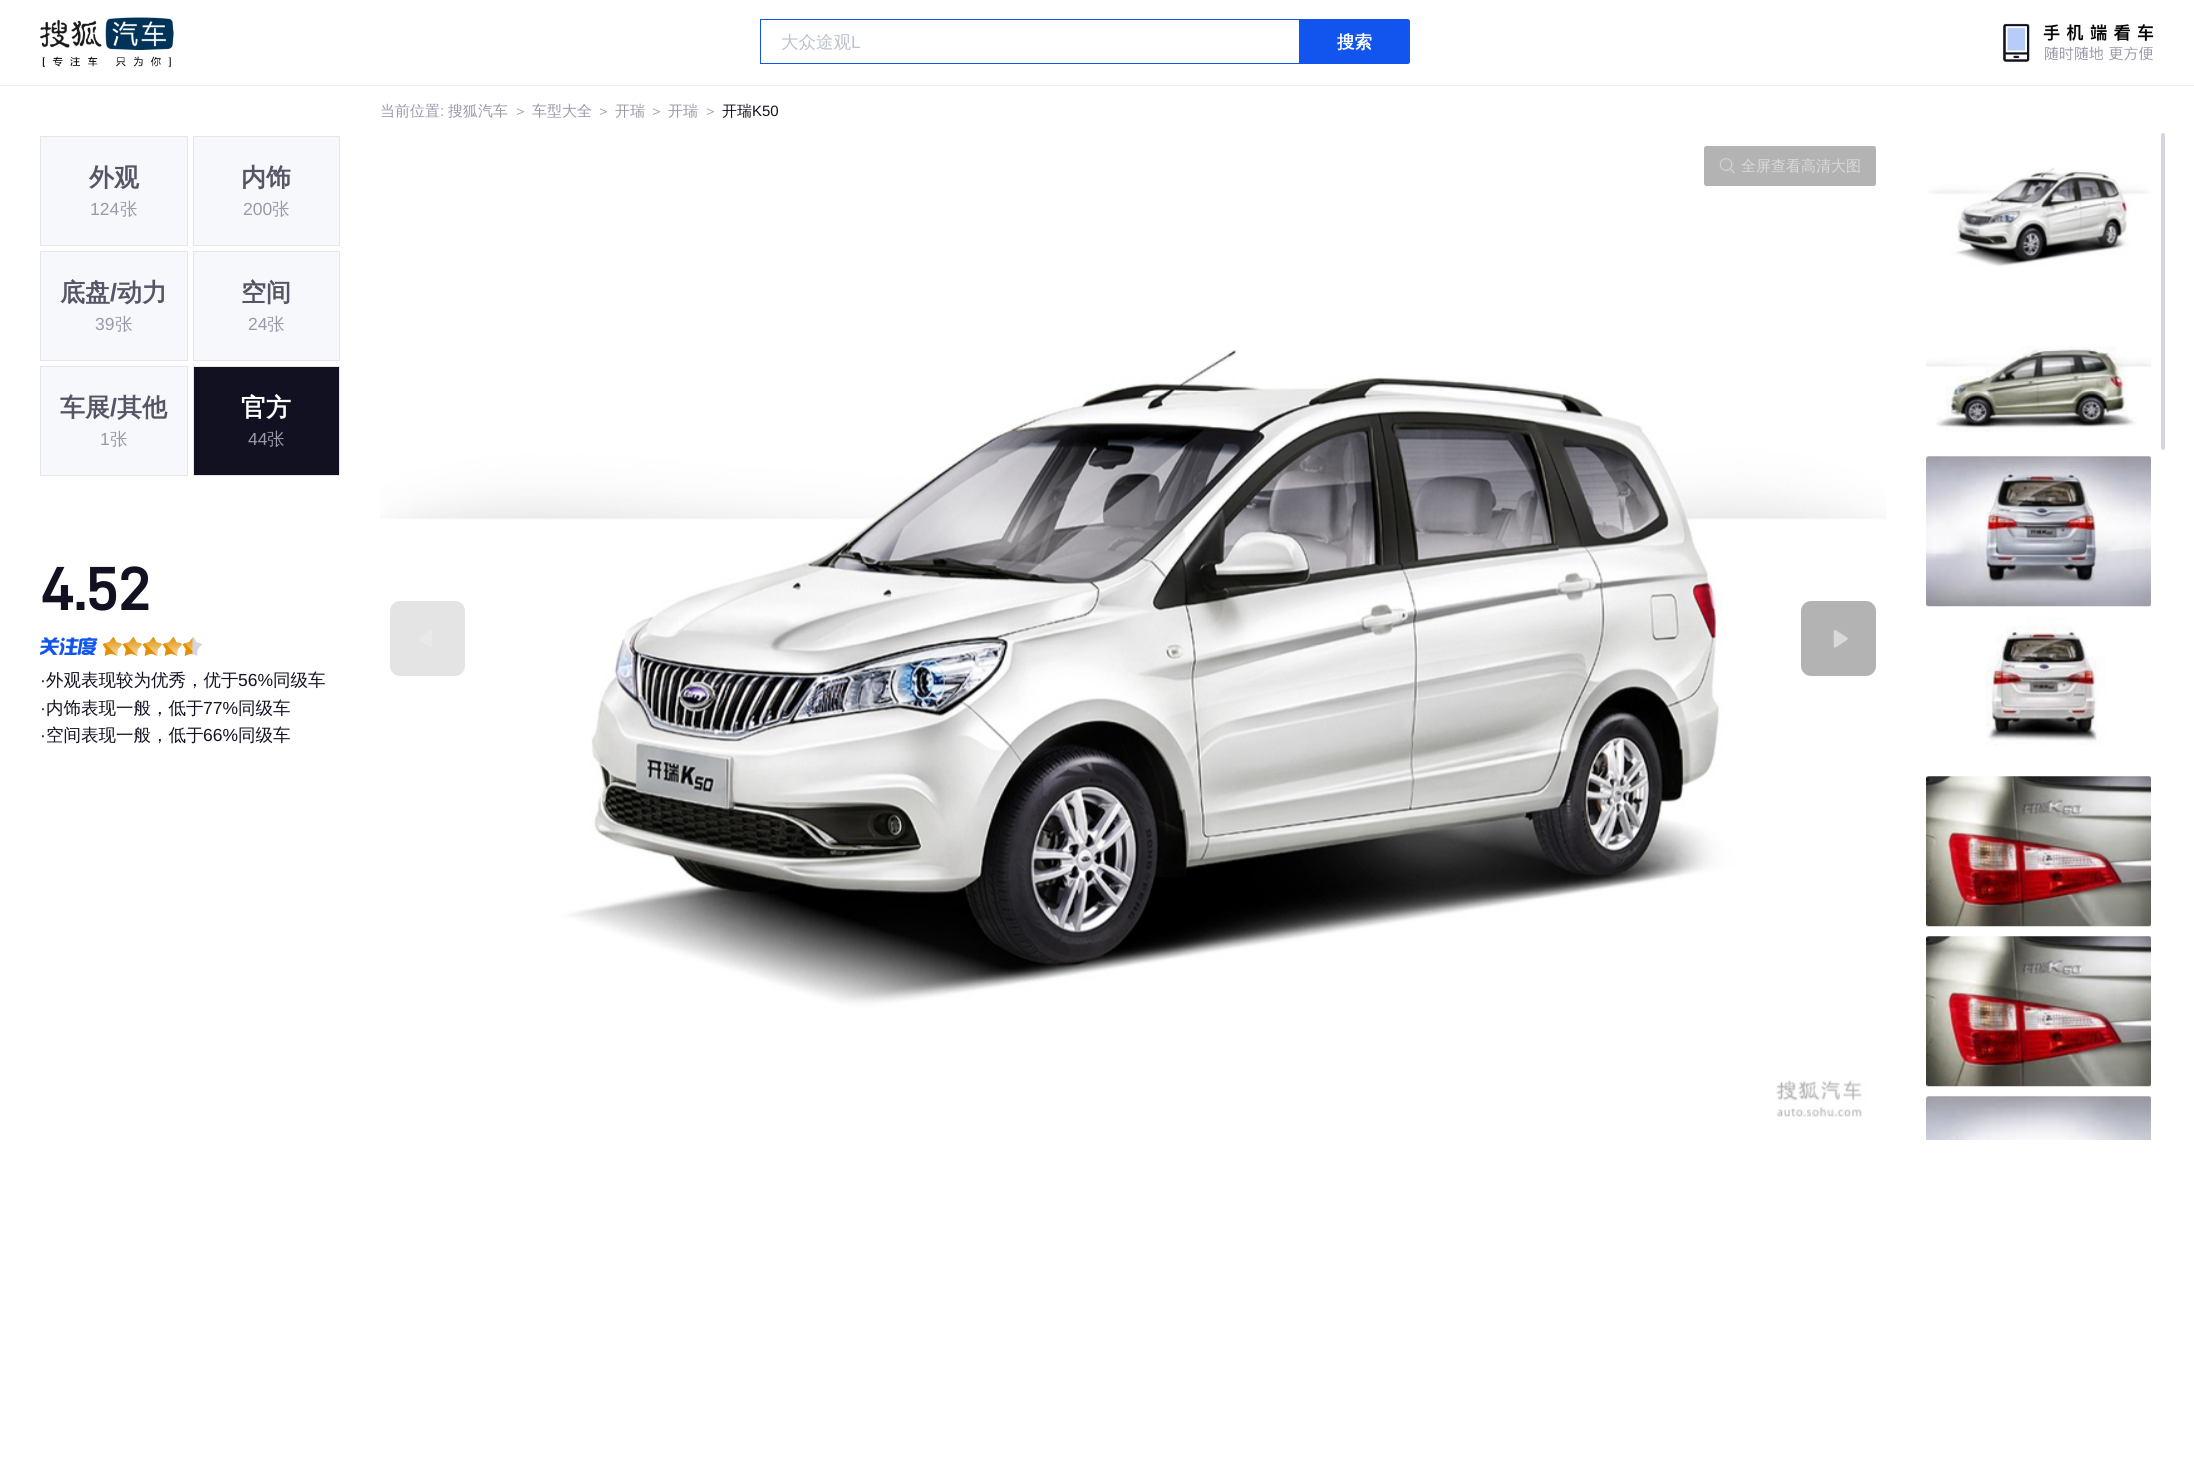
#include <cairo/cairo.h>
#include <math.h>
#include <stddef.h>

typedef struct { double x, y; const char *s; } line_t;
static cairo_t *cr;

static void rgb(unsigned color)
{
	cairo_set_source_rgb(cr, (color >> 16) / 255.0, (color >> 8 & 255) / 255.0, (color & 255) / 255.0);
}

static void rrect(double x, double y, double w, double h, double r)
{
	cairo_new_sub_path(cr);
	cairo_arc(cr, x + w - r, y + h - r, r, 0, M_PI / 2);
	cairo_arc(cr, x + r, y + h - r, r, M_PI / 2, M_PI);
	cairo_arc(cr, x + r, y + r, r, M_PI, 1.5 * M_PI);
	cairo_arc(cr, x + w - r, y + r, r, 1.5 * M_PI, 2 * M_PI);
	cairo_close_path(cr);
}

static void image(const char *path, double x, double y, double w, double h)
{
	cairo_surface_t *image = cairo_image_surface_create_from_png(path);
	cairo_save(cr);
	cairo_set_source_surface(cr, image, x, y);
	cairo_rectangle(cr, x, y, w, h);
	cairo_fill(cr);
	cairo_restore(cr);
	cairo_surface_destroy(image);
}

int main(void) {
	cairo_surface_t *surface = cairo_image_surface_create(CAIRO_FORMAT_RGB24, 2194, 1480);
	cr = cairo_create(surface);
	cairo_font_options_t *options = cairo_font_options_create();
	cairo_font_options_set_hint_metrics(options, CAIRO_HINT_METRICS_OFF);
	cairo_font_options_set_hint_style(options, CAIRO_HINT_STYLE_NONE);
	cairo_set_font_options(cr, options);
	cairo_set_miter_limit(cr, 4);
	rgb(0xffffff);
	cairo_paint(cr);
	rgb(0xeeeef0);
	cairo_rectangle(cr, 0, 85, 2194, 1);
	cairo_fill(cr);
	image("img/1.png", 40, 17, 134, 50);
	cairo_rectangle(cr, 760.5, 19.5, 539, 44);
	rgb(0x1155ee);
	cairo_set_line_width(cr, 1);
	cairo_stroke(cr);
	cairo_new_path(cr);
	cairo_move_to(cr, 1300, 19);
	cairo_line_to(cr, 1407.5, 19);
	cairo_curve_to(cr, 1409, 19, 1410, 20, 1410, 21.5);
	cairo_line_to(cr, 1410, 61.5);
	cairo_curve_to(cr, 1410, 63, 1409, 64, 1407.5, 64);
	cairo_line_to(cr, 1300, 64);
	cairo_close_path(cr);
	cairo_fill(cr);
	image("img/2.png", 2003, 23, 151, 39);
	rgb(0xf7f8fc);
	cairo_rectangle(cr, 40.5, 136.5, 147, 109);
	cairo_fill_preserve(cr);
	rgb(0xe5e5ee);
	cairo_stroke(cr);
	rgb(0xf7f8fc);
	cairo_rectangle(cr, 193.5, 136.5, 146, 109);
	cairo_fill_preserve(cr);
	rgb(0xe5e5ee);
	cairo_stroke(cr);
	rgb(0xf7f8fc);
	cairo_rectangle(cr, 40.5, 251.5, 147, 109);
	cairo_fill_preserve(cr);
	rgb(0xe5e5ee);
	cairo_stroke(cr);
	rgb(0xf7f8fc);
	cairo_rectangle(cr, 193.5, 251.5, 146, 109);
	cairo_fill_preserve(cr);
	rgb(0xe5e5ee);
	cairo_stroke(cr);
	rgb(0xf7f8fc);
	cairo_rectangle(cr, 40.5, 366.5, 147, 109);
	cairo_fill_preserve(cr);
	rgb(0xe5e5ee);
	cairo_stroke(cr);
	rgb(0x111122);
	cairo_rectangle(cr, 193.5, 366.5, 146, 109);
	cairo_fill_preserve(cr);
	rgb(0xe5e5ee);
	cairo_stroke(cr);
	image("img/3.png", 40, 637, 58, 18);
	image("img/7.png", 102, 637, 21, 19);
	image("img/8.png", 122, 637, 21, 19);
	image("img/4.png", 102, 636, 21, 20);
	image("img/8.png", 142, 637, 21, 19);
	image("img/5.png", 122, 636, 21, 20);
	image("img/8.png", 162, 637, 21, 19);
	image("img/5.png", 142, 636, 21, 20);
	image("img/8.png", 182, 637, 21, 19);
	image("img/5.png", 162, 636, 21, 20);
	image("img/6.png", 182, 637, 11, 19);
	rgb(0xb3b3b3);
	rrect(1704, 146, 172, 40, 2.5);
	cairo_fill(cr);
	image("img/9.png", 1719, 158, 16, 16);
	image("img/10.png", 380, 350, 1506, 767);
	rgb(0xe4e4e4);
	rrect(390, 601, 75, 75, 10);
	cairo_fill(cr);
	image("img/11.png", 419, 630, 13, 17);
	rgb(0xb3b3b3);
	rrect(1801, 601, 75, 75, 10);
	cairo_fill(cr);
	image("img/12.png", 1833, 630, 15, 18);
	image("img/13.png", 1927, 167, 224, 100);
	image("img/14.png", 1926, 346, 225, 86);
	image("img/15.png", 1926, 456, 225, 151);
	image("img/16.png", 1986, 617, 120, 129);
	image("img/17.png", 1926, 776, 225, 151);
	image("img/18.png", 1926, 936, 225, 151);
	image("img/19.png", 1926, 1096, 225, 44);
	rgb(0xd5d5e2);
	rrect(2161, 133, 4, 317, 2);
	cairo_fill(cr);
	cairo_select_font_face(cr, "WenQuanYi Zen Hei Medium", CAIRO_FONT_SLANT_NORMAL, CAIRO_FONT_WEIGHT_NORMAL);
	cairo_set_font_size(cr, 17.5);
	rgb(0xbbc2cc);
	cairo_move_to(cr, 781, 48);
	cairo_show_text(cr, "大众途观");
	cairo_select_font_face(cr, "Liberation Sans", CAIRO_FONT_SLANT_NORMAL, CAIRO_FONT_WEIGHT_NORMAL);
	cairo_move_to(cr, 851, 48);
	cairo_show_text(cr, "L");
	cairo_select_font_face(cr, "WenQuanYi Zen Hei", CAIRO_FONT_SLANT_NORMAL, CAIRO_FONT_WEIGHT_BOLD);
	rgb(0xffffff);
	cairo_move_to(cr, 1337, 48);
	cairo_show_text(cr, "搜索");
	cairo_select_font_face(cr, "WenQuanYi Zen Hei Medium", CAIRO_FONT_SLANT_NORMAL, CAIRO_FONT_WEIGHT_NORMAL);
	cairo_set_font_size(cr, 15);
	rgb(0x9999aa);
	cairo_move_to(cr, 380, 116);
	cairo_show_text(cr, "当前位置");
	cairo_select_font_face(cr, "Liberation Sans", CAIRO_FONT_SLANT_NORMAL, CAIRO_FONT_WEIGHT_NORMAL);
	cairo_move_to(cr, 440, 116);
	cairo_show_text(cr, ":");
	cairo_select_font_face(cr, "WenQuanYi Zen Hei Medium", CAIRO_FONT_SLANT_NORMAL, CAIRO_FONT_WEIGHT_NORMAL);
	{
		static const line_t items[] = {
			{448, 116, "搜狐汽车"},
			{513, 116, "＞"},
			{532, 116, "车型大全"},
			{596, 116, "＞"},
			{615, 116, "开瑞"},
			{649, 116, "＞"},
			{668, 116, "开瑞"},
			{703, 116, "＞"},
		};
		for (size_t i = 0; i < sizeof items / sizeof *items; i++) {
			cairo_move_to(cr, items[i].x, items[i].y);
			cairo_show_text(cr, items[i].s);
		}
	}
	rgb(0x111122);
	cairo_move_to(cr, 722, 116);
	cairo_show_text(cr, "开瑞");
	cairo_select_font_face(cr, "Liberation Sans", CAIRO_FONT_SLANT_NORMAL, CAIRO_FONT_WEIGHT_NORMAL);
	cairo_move_to(cr, 752, 116);
	cairo_show_text(cr, "K50");
	cairo_select_font_face(cr, "WenQuanYi Zen Hei", CAIRO_FONT_SLANT_NORMAL, CAIRO_FONT_WEIGHT_BOLD);
	cairo_set_font_size(cr, 25);
	rgb(0x555566);
	cairo_move_to(cr, 89, 186);
	cairo_show_text(cr, "外观");
	cairo_select_font_face(cr, "Liberation Sans", CAIRO_FONT_SLANT_NORMAL, CAIRO_FONT_WEIGHT_NORMAL);
	cairo_set_font_size(cr, 17.5);
	rgb(0x9999aa);
	cairo_move_to(cr, 90, 215);
	cairo_show_text(cr, "124");
	cairo_select_font_face(cr, "WenQuanYi Zen Hei Medium", CAIRO_FONT_SLANT_NORMAL, CAIRO_FONT_WEIGHT_NORMAL);
	cairo_move_to(cr, 120, 215);
	cairo_show_text(cr, "张");
	cairo_select_font_face(cr, "WenQuanYi Zen Hei", CAIRO_FONT_SLANT_NORMAL, CAIRO_FONT_WEIGHT_BOLD);
	cairo_set_font_size(cr, 25);
	rgb(0x555566);
	cairo_move_to(cr, 241, 186);
	cairo_show_text(cr, "内饰");
	cairo_select_font_face(cr, "Liberation Sans", CAIRO_FONT_SLANT_NORMAL, CAIRO_FONT_WEIGHT_NORMAL);
	cairo_set_font_size(cr, 17.5);
	rgb(0x9999aa);
	cairo_move_to(cr, 243, 215);
	cairo_show_text(cr, "200");
	cairo_select_font_face(cr, "WenQuanYi Zen Hei Medium", CAIRO_FONT_SLANT_NORMAL, CAIRO_FONT_WEIGHT_NORMAL);
	cairo_move_to(cr, 272, 215);
	cairo_show_text(cr, "张");
	cairo_select_font_face(cr, "WenQuanYi Zen Hei", CAIRO_FONT_SLANT_NORMAL, CAIRO_FONT_WEIGHT_BOLD);
	cairo_set_font_size(cr, 25);
	rgb(0x555566);
	cairo_move_to(cr, 60, 301);
	cairo_show_text(cr, "底盘");
	cairo_select_font_face(cr, "Liberation Sans", CAIRO_FONT_SLANT_NORMAL, CAIRO_FONT_WEIGHT_BOLD);
	cairo_move_to(cr, 110, 301);
	cairo_show_text(cr, "/");
	cairo_select_font_face(cr, "WenQuanYi Zen Hei", CAIRO_FONT_SLANT_NORMAL, CAIRO_FONT_WEIGHT_BOLD);
	cairo_move_to(cr, 117, 301);
	cairo_show_text(cr, "动力");
	cairo_select_font_face(cr, "Liberation Sans", CAIRO_FONT_SLANT_NORMAL, CAIRO_FONT_WEIGHT_NORMAL);
	cairo_set_font_size(cr, 17.5);
	rgb(0x9999aa);
	cairo_move_to(cr, 95, 330);
	cairo_show_text(cr, "39");
	cairo_select_font_face(cr, "WenQuanYi Zen Hei Medium", CAIRO_FONT_SLANT_NORMAL, CAIRO_FONT_WEIGHT_NORMAL);
	cairo_move_to(cr, 115, 330);
	cairo_show_text(cr, "张");
	cairo_select_font_face(cr, "WenQuanYi Zen Hei", CAIRO_FONT_SLANT_NORMAL, CAIRO_FONT_WEIGHT_BOLD);
	cairo_set_font_size(cr, 25);
	rgb(0x555566);
	cairo_move_to(cr, 241, 301);
	cairo_show_text(cr, "空间");
	cairo_select_font_face(cr, "Liberation Sans", CAIRO_FONT_SLANT_NORMAL, CAIRO_FONT_WEIGHT_NORMAL);
	cairo_set_font_size(cr, 17.5);
	rgb(0x9999aa);
	cairo_move_to(cr, 248, 330);
	cairo_show_text(cr, "24");
	cairo_select_font_face(cr, "WenQuanYi Zen Hei Medium", CAIRO_FONT_SLANT_NORMAL, CAIRO_FONT_WEIGHT_NORMAL);
	cairo_move_to(cr, 267, 330);
	cairo_show_text(cr, "张");
	cairo_select_font_face(cr, "WenQuanYi Zen Hei", CAIRO_FONT_SLANT_NORMAL, CAIRO_FONT_WEIGHT_BOLD);
	cairo_set_font_size(cr, 25);
	rgb(0x555566);
	cairo_move_to(cr, 60, 416);
	cairo_show_text(cr, "车展");
	cairo_select_font_face(cr, "Liberation Sans", CAIRO_FONT_SLANT_NORMAL, CAIRO_FONT_WEIGHT_BOLD);
	cairo_move_to(cr, 110, 416);
	cairo_show_text(cr, "/");
	cairo_select_font_face(cr, "WenQuanYi Zen Hei", CAIRO_FONT_SLANT_NORMAL, CAIRO_FONT_WEIGHT_BOLD);
	cairo_move_to(cr, 117, 416);
	cairo_show_text(cr, "其他");
	cairo_select_font_face(cr, "Liberation Sans", CAIRO_FONT_SLANT_NORMAL, CAIRO_FONT_WEIGHT_NORMAL);
	cairo_set_font_size(cr, 17.5);
	rgb(0x9999aa);
	cairo_move_to(cr, 100, 445);
	cairo_show_text(cr, "1");
	cairo_select_font_face(cr, "WenQuanYi Zen Hei Medium", CAIRO_FONT_SLANT_NORMAL, CAIRO_FONT_WEIGHT_NORMAL);
	cairo_move_to(cr, 110, 445);
	cairo_show_text(cr, "张");
	cairo_select_font_face(cr, "WenQuanYi Zen Hei", CAIRO_FONT_SLANT_NORMAL, CAIRO_FONT_WEIGHT_BOLD);
	cairo_set_font_size(cr, 25);
	rgb(0xffffff);
	cairo_move_to(cr, 241, 416);
	cairo_show_text(cr, "官方");
	cairo_select_font_face(cr, "Liberation Sans", CAIRO_FONT_SLANT_NORMAL, CAIRO_FONT_WEIGHT_NORMAL);
	cairo_set_font_size(cr, 17.5);
	rgb(0x9999aa);
	cairo_move_to(cr, 248, 445);
	cairo_show_text(cr, "44");
	cairo_select_font_face(cr, "WenQuanYi Zen Hei Medium", CAIRO_FONT_SLANT_NORMAL, CAIRO_FONT_WEIGHT_NORMAL);
	cairo_move_to(cr, 267, 445);
	cairo_show_text(cr, "张");
	cairo_select_font_face(cr, "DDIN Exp", CAIRO_FONT_SLANT_NORMAL, CAIRO_FONT_WEIGHT_BOLD);
	cairo_set_font_size(cr, 60);
	rgb(0x111122);
	cairo_move_to(cr, 40, 610);
	cairo_show_text(cr, "4.52");
	cairo_select_font_face(cr, "Liberation Sans", CAIRO_FONT_SLANT_NORMAL, CAIRO_FONT_WEIGHT_NORMAL);
	cairo_set_font_size(cr, 17.5);
	cairo_move_to(cr, 40, 686);
	cairo_show_text(cr, "·");
	cairo_select_font_face(cr, "WenQuanYi Zen Hei Medium", CAIRO_FONT_SLANT_NORMAL, CAIRO_FONT_WEIGHT_NORMAL);
	cairo_move_to(cr, 46, 686);
	cairo_show_text(cr, "外观表现较为优秀，优于");
	cairo_select_font_face(cr, "Liberation Sans", CAIRO_FONT_SLANT_NORMAL, CAIRO_FONT_WEIGHT_NORMAL);
	cairo_move_to(cr, 238, 686);
	cairo_show_text(cr, "56%");
	cairo_select_font_face(cr, "WenQuanYi Zen Hei Medium", CAIRO_FONT_SLANT_NORMAL, CAIRO_FONT_WEIGHT_NORMAL);
	cairo_move_to(cr, 273, 686);
	cairo_show_text(cr, "同级车");
	cairo_select_font_face(cr, "Liberation Sans", CAIRO_FONT_SLANT_NORMAL, CAIRO_FONT_WEIGHT_NORMAL);
	cairo_move_to(cr, 40, 714);
	cairo_show_text(cr, "·");
	cairo_select_font_face(cr, "WenQuanYi Zen Hei Medium", CAIRO_FONT_SLANT_NORMAL, CAIRO_FONT_WEIGHT_NORMAL);
	cairo_move_to(cr, 46, 714);
	cairo_show_text(cr, "内饰表现一般，低于");
	cairo_select_font_face(cr, "Liberation Sans", CAIRO_FONT_SLANT_NORMAL, CAIRO_FONT_WEIGHT_NORMAL);
	cairo_move_to(cr, 203, 714);
	cairo_show_text(cr, "77%");
	cairo_select_font_face(cr, "WenQuanYi Zen Hei Medium", CAIRO_FONT_SLANT_NORMAL, CAIRO_FONT_WEIGHT_NORMAL);
	cairo_move_to(cr, 238, 714);
	cairo_show_text(cr, "同级车");
	cairo_select_font_face(cr, "Liberation Sans", CAIRO_FONT_SLANT_NORMAL, CAIRO_FONT_WEIGHT_NORMAL);
	cairo_move_to(cr, 40, 741);
	cairo_show_text(cr, "·");
	cairo_select_font_face(cr, "WenQuanYi Zen Hei Medium", CAIRO_FONT_SLANT_NORMAL, CAIRO_FONT_WEIGHT_NORMAL);
	cairo_move_to(cr, 46, 741);
	cairo_show_text(cr, "空间表现一般，低于");
	cairo_select_font_face(cr, "Liberation Sans", CAIRO_FONT_SLANT_NORMAL, CAIRO_FONT_WEIGHT_NORMAL);
	cairo_move_to(cr, 203, 741);
	cairo_show_text(cr, "66%");
	cairo_select_font_face(cr, "WenQuanYi Zen Hei Medium", CAIRO_FONT_SLANT_NORMAL, CAIRO_FONT_WEIGHT_NORMAL);
	cairo_move_to(cr, 238, 741);
	cairo_show_text(cr, "同级车");
	cairo_set_font_size(cr, 15);
	rgb(0xd9d9d9);
	cairo_move_to(cr, 1741, 171);
	cairo_show_text(cr, "全屏查看高清大图");
	cairo_surface_write_to_png(surface, "page.png");
	cairo_font_options_destroy(options);
	cairo_destroy(cr);
	cairo_surface_destroy(surface);
	return 0;
}
